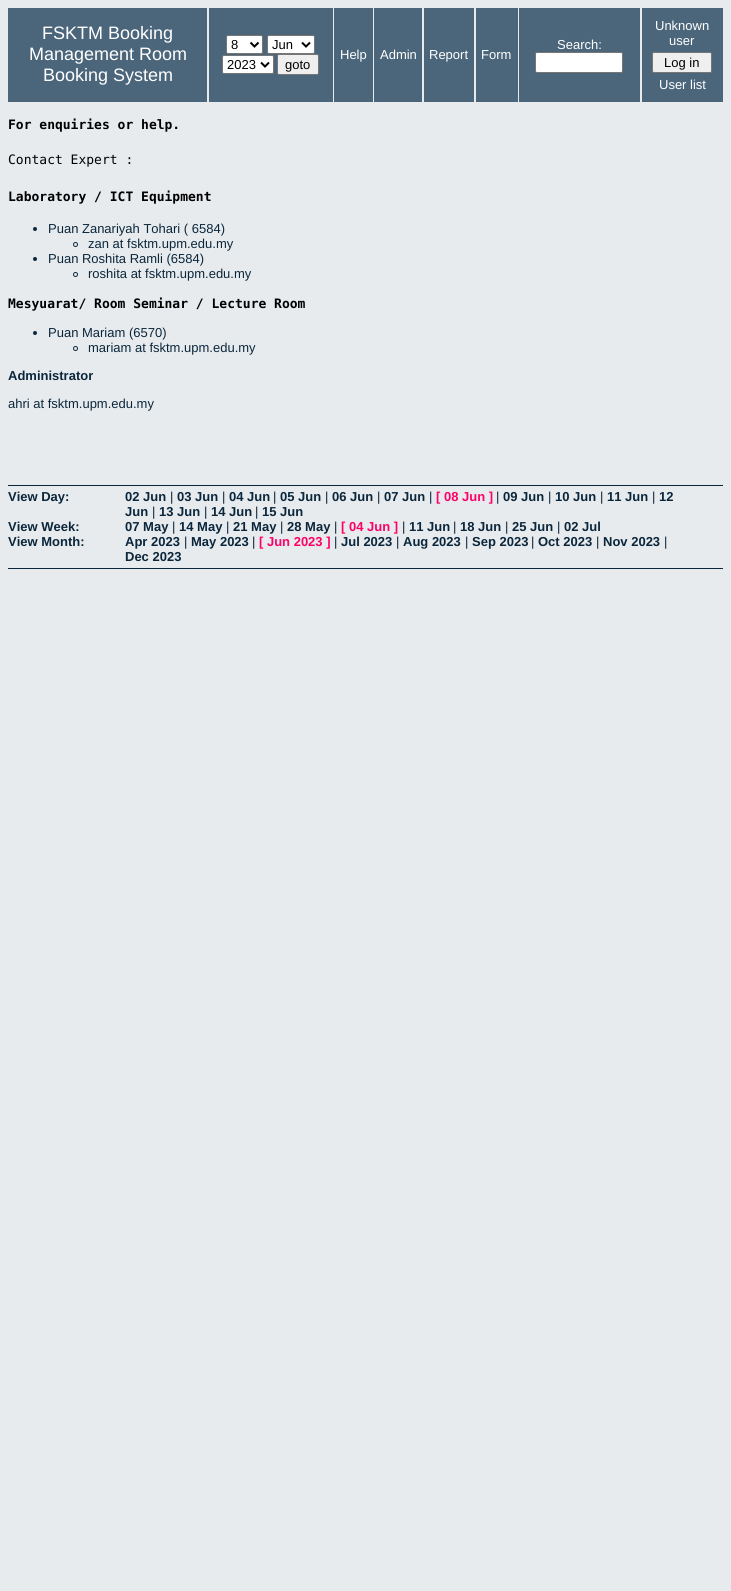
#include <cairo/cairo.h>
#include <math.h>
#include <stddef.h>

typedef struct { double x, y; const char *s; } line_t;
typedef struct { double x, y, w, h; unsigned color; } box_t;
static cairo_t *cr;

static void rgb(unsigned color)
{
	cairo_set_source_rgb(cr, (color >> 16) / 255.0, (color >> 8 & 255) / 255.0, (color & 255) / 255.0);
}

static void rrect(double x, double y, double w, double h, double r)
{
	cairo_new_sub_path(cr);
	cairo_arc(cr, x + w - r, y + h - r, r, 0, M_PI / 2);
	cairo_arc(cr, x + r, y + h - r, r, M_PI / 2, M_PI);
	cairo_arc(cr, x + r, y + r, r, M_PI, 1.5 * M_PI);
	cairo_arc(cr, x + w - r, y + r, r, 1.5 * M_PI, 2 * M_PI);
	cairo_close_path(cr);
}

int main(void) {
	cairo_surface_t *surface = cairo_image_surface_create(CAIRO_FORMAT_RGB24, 731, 1591);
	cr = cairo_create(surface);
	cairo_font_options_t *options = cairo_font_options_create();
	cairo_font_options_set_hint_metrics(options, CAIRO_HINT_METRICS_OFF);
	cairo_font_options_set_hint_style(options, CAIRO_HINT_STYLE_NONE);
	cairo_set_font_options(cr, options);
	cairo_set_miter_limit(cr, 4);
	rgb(0xe7ebee);
	cairo_paint(cr);
	rgb(0x4b667b);
	cairo_rectangle(cr, 8, 8, 199, 94);
	cairo_fill(cr);
	cairo_rectangle(cr, 209, 8, 124, 94);
	cairo_fill(cr);
	rgb(0xffffff);
	rrect(226.5, 35.5, 36, 18, 1.5);
	cairo_fill_preserve(cr);
	rgb(0x767676);
	cairo_set_line_width(cr, 1);
	cairo_stroke(cr);
	cairo_new_path(cr);
	cairo_move_to(cr, 250.5, 42.5);
	cairo_line_to(cr, 254.5, 46.5);
	cairo_line_to(cr, 258.5, 42.5);
	rgb(0x000000);
	cairo_set_line_width(cr, 2);
	cairo_stroke(cr);
	rgb(0xffffff);
	rrect(267.5, 35.5, 47, 18, 1.5);
	cairo_fill_preserve(cr);
	rgb(0x767676);
	cairo_set_line_width(cr, 1);
	cairo_stroke(cr);
	cairo_new_path(cr);
	cairo_move_to(cr, 302, 42.5);
	cairo_line_to(cr, 306, 46.5);
	cairo_line_to(cr, 310, 42.5);
	rgb(0x000000);
	cairo_set_line_width(cr, 2);
	cairo_stroke(cr);
	rgb(0xffffff);
	rrect(222.5, 55.5, 51, 18, 1.5);
	cairo_fill_preserve(cr);
	rgb(0x767676);
	cairo_set_line_width(cr, 1);
	cairo_stroke(cr);
	cairo_new_path(cr);
	cairo_move_to(cr, 261, 62.5);
	cairo_line_to(cr, 265, 66.5);
	cairo_line_to(cr, 269, 62.5);
	rgb(0x000000);
	cairo_set_line_width(cr, 2);
	cairo_stroke(cr);
	rgb(0xefefef);
	rrect(277.5, 54.5, 41, 20, 1.5);
	cairo_fill_preserve(cr);
	rgb(0x767676);
	cairo_set_line_width(cr, 1);
	cairo_stroke(cr);
	rgb(0x4b667b);
	cairo_rectangle(cr, 519, 8, 121, 94);
	cairo_fill(cr);
	rgb(0xffffff);
	rrect(535.5, 52.5, 87, 20, 1.5);
	cairo_fill_preserve(cr);
	rgb(0x767676);
	cairo_stroke(cr);
	rgb(0x4b667b);
	cairo_rectangle(cr, 642, 8, 81, 94);
	cairo_fill(cr);
	rgb(0xefefef);
	rrect(652.5, 52.5, 59, 20, 1.5);
	cairo_fill_preserve(cr);
	rgb(0x767676);
	cairo_stroke(cr);
	{
		static const box_t items[] = {
			{334, 8, 39, 94, 0x4b667b},
			{374, 8, 48, 94, 0x4b667b},
			{424, 8, 50, 94, 0x4b667b},
			{476, 8, 42, 94, 0x4b667b},
		};
		for (size_t i = 0; i < sizeof items / sizeof *items; i++) {
			rgb(items[i].color);
			cairo_rectangle(cr, items[i].x, items[i].y, items[i].w, items[i].h);
			cairo_fill(cr);
		}
	}
	rgb(0x0b263b);
	cairo_arc(cr, 35, 229, 2, 0, 2 * M_PI);
	cairo_fill(cr);
	cairo_arc(cr, 75.5, 244.5, 2, 0, 2 * M_PI);
	cairo_stroke(cr);
	cairo_arc(cr, 35, 259, 2, 0, 2 * M_PI);
	cairo_fill(cr);
	cairo_arc(cr, 75.5, 274.5, 2, 0, 2 * M_PI);
	cairo_stroke(cr);
	cairo_arc(cr, 35, 333, 2, 0, 2 * M_PI);
	cairo_fill(cr);
	cairo_arc(cr, 75.5, 348.5, 2, 0, 2 * M_PI);
	cairo_stroke(cr);
	cairo_rectangle(cr, 8, 485, 715, 1);
	cairo_fill(cr);
	cairo_rectangle(cr, 8, 568, 715, 1);
	cairo_fill(cr);
	cairo_select_font_face(cr, "Liberation Sans", CAIRO_FONT_SLANT_NORMAL, CAIRO_FONT_WEIGHT_NORMAL);
	cairo_set_font_size(cr, 18);
	rgb(0xffffff);
	{
		static const line_t items[] = {
			{42, 39, "FSKTM Booking"},
			{29, 60, "Management Room"},
			{43, 81, "Booking System"},
		};
		for (size_t i = 0; i < sizeof items / sizeof *items; i++) {
			cairo_move_to(cr, items[i].x, items[i].y);
			cairo_show_text(cr, items[i].s);
		}
	}
	cairo_set_font_size(cr, 13);
	rgb(0x000000);
	{
		static const line_t items[] = {
			{231, 49, "8"},
			{272, 49, "Jun"},
			{227, 69, "2023"},
			{285, 69, "goto"},
		};
		for (size_t i = 0; i < sizeof items / sizeof *items; i++) {
			cairo_move_to(cr, items[i].x, items[i].y);
			cairo_show_text(cr, items[i].s);
		}
	}
	rgb(0xffffff);
	{
		static const line_t items[] = {
			{557, 49, "Search:"},
			{655, 30, "Unknown"},
			{669, 45, "user"},
		};
		for (size_t i = 0; i < sizeof items / sizeof *items; i++) {
			cairo_move_to(cr, items[i].x, items[i].y);
			cairo_show_text(cr, items[i].s);
		}
	}
	rgb(0x000000);
	cairo_move_to(cr, 664, 67);
	cairo_show_text(cr, "Log in");
	rgb(0xffffff);
	{
		static const line_t items[] = {
			{659, 89, "User list"},
			{340, 59, "Help"},
			{380, 59, "Admin"},
			{429, 59, "Report"},
			{481, 59, "Form"},
		};
		for (size_t i = 0; i < sizeof items / sizeof *items; i++) {
			cairo_move_to(cr, items[i].x, items[i].y);
			cairo_show_text(cr, items[i].s);
		}
	}
	cairo_select_font_face(cr, "DejaVu Sans Mono", CAIRO_FONT_SLANT_NORMAL, CAIRO_FONT_WEIGHT_BOLD);
	rgb(0x000000);
	cairo_move_to(cr, 8, 129);
	cairo_show_text(cr, "For enquiries or help.");
	cairo_select_font_face(cr, "DejaVu Sans Mono", CAIRO_FONT_SLANT_NORMAL, CAIRO_FONT_WEIGHT_NORMAL);
	cairo_move_to(cr, 8, 164);
	cairo_show_text(cr, "Contact Expert :");
	cairo_select_font_face(cr, "DejaVu Sans Mono", CAIRO_FONT_SLANT_NORMAL, CAIRO_FONT_WEIGHT_BOLD);
	cairo_move_to(cr, 8, 201);
	cairo_show_text(cr, "Laboratory / ICT Equipment");
	cairo_select_font_face(cr, "Liberation Sans", CAIRO_FONT_SLANT_NORMAL, CAIRO_FONT_WEIGHT_NORMAL);
	rgb(0x0b263b);
	{
		static const line_t items[] = {
			{48, 233, "Puan Zanariyah Tohari ( 6584)"},
			{88, 248, "zan at fsktm.upm.edu.my"},
			{48, 263, "Puan Roshita Ramli (6584)"},
			{88, 278, "roshita at fsktm.upm.edu.my"},
		};
		for (size_t i = 0; i < sizeof items / sizeof *items; i++) {
			cairo_move_to(cr, items[i].x, items[i].y);
			cairo_show_text(cr, items[i].s);
		}
	}
	cairo_select_font_face(cr, "DejaVu Sans Mono", CAIRO_FONT_SLANT_NORMAL, CAIRO_FONT_WEIGHT_BOLD);
	rgb(0x000000);
	cairo_move_to(cr, 8, 308);
	cairo_show_text(cr, "Mesyuarat/ Room Seminar / Lecture Room");
	cairo_select_font_face(cr, "Liberation Sans", CAIRO_FONT_SLANT_NORMAL, CAIRO_FONT_WEIGHT_NORMAL);
	rgb(0x0b263b);
	cairo_move_to(cr, 48, 337);
	cairo_show_text(cr, "Puan Mariam (6570)");
	cairo_move_to(cr, 88, 352);
	cairo_show_text(cr, "mariam at fsktm.upm.edu.my");
	cairo_select_font_face(cr, "Liberation Sans", CAIRO_FONT_SLANT_NORMAL, CAIRO_FONT_WEIGHT_BOLD);
	cairo_move_to(cr, 8, 380);
	cairo_show_text(cr, "Administrator");
	cairo_select_font_face(cr, "Liberation Sans", CAIRO_FONT_SLANT_NORMAL, CAIRO_FONT_WEIGHT_NORMAL);
	cairo_move_to(cr, 8, 408);
	cairo_show_text(cr, "ahri at fsktm.upm.edu.my");
	cairo_select_font_face(cr, "Liberation Sans", CAIRO_FONT_SLANT_NORMAL, CAIRO_FONT_WEIGHT_BOLD);
	cairo_move_to(cr, 8, 501);
	cairo_show_text(cr, "View Day:");
	cairo_move_to(cr, 125, 501);
	cairo_show_text(cr, "02 Jun");
	cairo_select_font_face(cr, "Liberation Sans", CAIRO_FONT_SLANT_NORMAL, CAIRO_FONT_WEIGHT_NORMAL);
	cairo_move_to(cr, 170, 501);
	cairo_show_text(cr, "|");
	cairo_select_font_face(cr, "Liberation Sans", CAIRO_FONT_SLANT_NORMAL, CAIRO_FONT_WEIGHT_BOLD);
	cairo_move_to(cr, 177, 501);
	cairo_show_text(cr, "03 Jun");
	cairo_select_font_face(cr, "Liberation Sans", CAIRO_FONT_SLANT_NORMAL, CAIRO_FONT_WEIGHT_NORMAL);
	cairo_move_to(cr, 222, 501);
	cairo_show_text(cr, "|");
	cairo_select_font_face(cr, "Liberation Sans", CAIRO_FONT_SLANT_NORMAL, CAIRO_FONT_WEIGHT_BOLD);
	cairo_move_to(cr, 229, 501);
	cairo_show_text(cr, "04 Jun");
	cairo_select_font_face(cr, "Liberation Sans", CAIRO_FONT_SLANT_NORMAL, CAIRO_FONT_WEIGHT_NORMAL);
	cairo_move_to(cr, 273, 501);
	cairo_show_text(cr, "|");
	cairo_select_font_face(cr, "Liberation Sans", CAIRO_FONT_SLANT_NORMAL, CAIRO_FONT_WEIGHT_BOLD);
	cairo_move_to(cr, 280, 501);
	cairo_show_text(cr, "05 Jun");
	cairo_select_font_face(cr, "Liberation Sans", CAIRO_FONT_SLANT_NORMAL, CAIRO_FONT_WEIGHT_NORMAL);
	cairo_move_to(cr, 325, 501);
	cairo_show_text(cr, "|");
	cairo_select_font_face(cr, "Liberation Sans", CAIRO_FONT_SLANT_NORMAL, CAIRO_FONT_WEIGHT_BOLD);
	cairo_move_to(cr, 332, 501);
	cairo_show_text(cr, "06 Jun");
	cairo_select_font_face(cr, "Liberation Sans", CAIRO_FONT_SLANT_NORMAL, CAIRO_FONT_WEIGHT_NORMAL);
	cairo_move_to(cr, 377, 501);
	cairo_show_text(cr, "|");
	cairo_select_font_face(cr, "Liberation Sans", CAIRO_FONT_SLANT_NORMAL, CAIRO_FONT_WEIGHT_BOLD);
	cairo_move_to(cr, 384, 501);
	cairo_show_text(cr, "07 Jun");
	cairo_select_font_face(cr, "Liberation Sans", CAIRO_FONT_SLANT_NORMAL, CAIRO_FONT_WEIGHT_NORMAL);
	cairo_move_to(cr, 429, 501);
	cairo_show_text(cr, "|");
	cairo_select_font_face(cr, "Liberation Sans", CAIRO_FONT_SLANT_NORMAL, CAIRO_FONT_WEIGHT_BOLD);
	rgb(0xff0066);
	cairo_move_to(cr, 436, 501);
	cairo_show_text(cr, "[ 08 Jun ]");
	cairo_select_font_face(cr, "Liberation Sans", CAIRO_FONT_SLANT_NORMAL, CAIRO_FONT_WEIGHT_NORMAL);
	rgb(0x0b263b);
	cairo_move_to(cr, 496, 501);
	cairo_show_text(cr, "|");
	cairo_select_font_face(cr, "Liberation Sans", CAIRO_FONT_SLANT_NORMAL, CAIRO_FONT_WEIGHT_BOLD);
	cairo_move_to(cr, 503, 501);
	cairo_show_text(cr, "09 Jun");
	cairo_select_font_face(cr, "Liberation Sans", CAIRO_FONT_SLANT_NORMAL, CAIRO_FONT_WEIGHT_NORMAL);
	cairo_move_to(cr, 548, 501);
	cairo_show_text(cr, "|");
	cairo_select_font_face(cr, "Liberation Sans", CAIRO_FONT_SLANT_NORMAL, CAIRO_FONT_WEIGHT_BOLD);
	cairo_move_to(cr, 555, 501);
	cairo_show_text(cr, "10 Jun");
	cairo_select_font_face(cr, "Liberation Sans", CAIRO_FONT_SLANT_NORMAL, CAIRO_FONT_WEIGHT_NORMAL);
	cairo_move_to(cr, 600, 501);
	cairo_show_text(cr, "|");
	cairo_select_font_face(cr, "Liberation Sans", CAIRO_FONT_SLANT_NORMAL, CAIRO_FONT_WEIGHT_BOLD);
	cairo_move_to(cr, 607, 501);
	cairo_show_text(cr, "11 Jun");
	cairo_select_font_face(cr, "Liberation Sans", CAIRO_FONT_SLANT_NORMAL, CAIRO_FONT_WEIGHT_NORMAL);
	cairo_move_to(cr, 652, 501);
	cairo_show_text(cr, "|");
	cairo_select_font_face(cr, "Liberation Sans", CAIRO_FONT_SLANT_NORMAL, CAIRO_FONT_WEIGHT_BOLD);
	cairo_move_to(cr, 659, 501);
	cairo_show_text(cr, "12");
	cairo_move_to(cr, 125, 516);
	cairo_show_text(cr, "Jun");
	cairo_select_font_face(cr, "Liberation Sans", CAIRO_FONT_SLANT_NORMAL, CAIRO_FONT_WEIGHT_NORMAL);
	cairo_move_to(cr, 152, 516);
	cairo_show_text(cr, "|");
	cairo_select_font_face(cr, "Liberation Sans", CAIRO_FONT_SLANT_NORMAL, CAIRO_FONT_WEIGHT_BOLD);
	cairo_move_to(cr, 159, 516);
	cairo_show_text(cr, "13 Jun");
	cairo_select_font_face(cr, "Liberation Sans", CAIRO_FONT_SLANT_NORMAL, CAIRO_FONT_WEIGHT_NORMAL);
	cairo_move_to(cr, 204, 516);
	cairo_show_text(cr, "|");
	cairo_select_font_face(cr, "Liberation Sans", CAIRO_FONT_SLANT_NORMAL, CAIRO_FONT_WEIGHT_BOLD);
	cairo_move_to(cr, 211, 516);
	cairo_show_text(cr, "14 Jun");
	cairo_select_font_face(cr, "Liberation Sans", CAIRO_FONT_SLANT_NORMAL, CAIRO_FONT_WEIGHT_NORMAL);
	cairo_move_to(cr, 255, 516);
	cairo_show_text(cr, "|");
	cairo_select_font_face(cr, "Liberation Sans", CAIRO_FONT_SLANT_NORMAL, CAIRO_FONT_WEIGHT_BOLD);
	{
		static const line_t items[] = {
			{262, 516, "15 Jun"},
			{8, 531, "View Week:"},
			{125, 531, "07 May"},
		};
		for (size_t i = 0; i < sizeof items / sizeof *items; i++) {
			cairo_move_to(cr, items[i].x, items[i].y);
			cairo_show_text(cr, items[i].s);
		}
	}
	cairo_select_font_face(cr, "Liberation Sans", CAIRO_FONT_SLANT_NORMAL, CAIRO_FONT_WEIGHT_NORMAL);
	cairo_move_to(cr, 172, 531);
	cairo_show_text(cr, "|");
	cairo_select_font_face(cr, "Liberation Sans", CAIRO_FONT_SLANT_NORMAL, CAIRO_FONT_WEIGHT_BOLD);
	cairo_move_to(cr, 179, 531);
	cairo_show_text(cr, "14 May");
	cairo_select_font_face(cr, "Liberation Sans", CAIRO_FONT_SLANT_NORMAL, CAIRO_FONT_WEIGHT_NORMAL);
	cairo_move_to(cr, 226, 531);
	cairo_show_text(cr, "|");
	cairo_select_font_face(cr, "Liberation Sans", CAIRO_FONT_SLANT_NORMAL, CAIRO_FONT_WEIGHT_BOLD);
	cairo_move_to(cr, 233, 531);
	cairo_show_text(cr, "21 May");
	cairo_select_font_face(cr, "Liberation Sans", CAIRO_FONT_SLANT_NORMAL, CAIRO_FONT_WEIGHT_NORMAL);
	cairo_move_to(cr, 280, 531);
	cairo_show_text(cr, "|");
	cairo_select_font_face(cr, "Liberation Sans", CAIRO_FONT_SLANT_NORMAL, CAIRO_FONT_WEIGHT_BOLD);
	cairo_move_to(cr, 287, 531);
	cairo_show_text(cr, "28 May");
	cairo_select_font_face(cr, "Liberation Sans", CAIRO_FONT_SLANT_NORMAL, CAIRO_FONT_WEIGHT_NORMAL);
	cairo_move_to(cr, 334, 531);
	cairo_show_text(cr, "|");
	cairo_select_font_face(cr, "Liberation Sans", CAIRO_FONT_SLANT_NORMAL, CAIRO_FONT_WEIGHT_BOLD);
	rgb(0xff0066);
	cairo_move_to(cr, 341, 531);
	cairo_show_text(cr, "[ 04 Jun ]");
	cairo_select_font_face(cr, "Liberation Sans", CAIRO_FONT_SLANT_NORMAL, CAIRO_FONT_WEIGHT_NORMAL);
	rgb(0x0b263b);
	cairo_move_to(cr, 402, 531);
	cairo_show_text(cr, "|");
	cairo_select_font_face(cr, "Liberation Sans", CAIRO_FONT_SLANT_NORMAL, CAIRO_FONT_WEIGHT_BOLD);
	cairo_move_to(cr, 409, 531);
	cairo_show_text(cr, "11 Jun");
	cairo_select_font_face(cr, "Liberation Sans", CAIRO_FONT_SLANT_NORMAL, CAIRO_FONT_WEIGHT_NORMAL);
	cairo_move_to(cr, 453, 531);
	cairo_show_text(cr, "|");
	cairo_select_font_face(cr, "Liberation Sans", CAIRO_FONT_SLANT_NORMAL, CAIRO_FONT_WEIGHT_BOLD);
	cairo_move_to(cr, 460, 531);
	cairo_show_text(cr, "18 Jun");
	cairo_select_font_face(cr, "Liberation Sans", CAIRO_FONT_SLANT_NORMAL, CAIRO_FONT_WEIGHT_NORMAL);
	cairo_move_to(cr, 505, 531);
	cairo_show_text(cr, "|");
	cairo_select_font_face(cr, "Liberation Sans", CAIRO_FONT_SLANT_NORMAL, CAIRO_FONT_WEIGHT_BOLD);
	cairo_move_to(cr, 512, 531);
	cairo_show_text(cr, "25 Jun");
	cairo_select_font_face(cr, "Liberation Sans", CAIRO_FONT_SLANT_NORMAL, CAIRO_FONT_WEIGHT_NORMAL);
	cairo_move_to(cr, 557, 531);
	cairo_show_text(cr, "|");
	cairo_select_font_face(cr, "Liberation Sans", CAIRO_FONT_SLANT_NORMAL, CAIRO_FONT_WEIGHT_BOLD);
	{
		static const line_t items[] = {
			{564, 531, "02 Jul"},
			{8, 546, "View Month:"},
			{125, 546, "Apr 2023"},
		};
		for (size_t i = 0; i < sizeof items / sizeof *items; i++) {
			cairo_move_to(cr, items[i].x, items[i].y);
			cairo_show_text(cr, items[i].s);
		}
	}
	cairo_select_font_face(cr, "Liberation Sans", CAIRO_FONT_SLANT_NORMAL, CAIRO_FONT_WEIGHT_NORMAL);
	cairo_move_to(cr, 184, 546);
	cairo_show_text(cr, "|");
	cairo_select_font_face(cr, "Liberation Sans", CAIRO_FONT_SLANT_NORMAL, CAIRO_FONT_WEIGHT_BOLD);
	cairo_move_to(cr, 191, 546);
	cairo_show_text(cr, "May 2023");
	cairo_select_font_face(cr, "Liberation Sans", CAIRO_FONT_SLANT_NORMAL, CAIRO_FONT_WEIGHT_NORMAL);
	cairo_move_to(cr, 252, 546);
	cairo_show_text(cr, "|");
	cairo_select_font_face(cr, "Liberation Sans", CAIRO_FONT_SLANT_NORMAL, CAIRO_FONT_WEIGHT_BOLD);
	rgb(0xff0066);
	cairo_move_to(cr, 259, 546);
	cairo_show_text(cr, "[ Jun 2023 ]");
	cairo_select_font_face(cr, "Liberation Sans", CAIRO_FONT_SLANT_NORMAL, CAIRO_FONT_WEIGHT_NORMAL);
	rgb(0x0b263b);
	cairo_move_to(cr, 334, 546);
	cairo_show_text(cr, "|");
	cairo_select_font_face(cr, "Liberation Sans", CAIRO_FONT_SLANT_NORMAL, CAIRO_FONT_WEIGHT_BOLD);
	cairo_move_to(cr, 341, 546);
	cairo_show_text(cr, "Jul 2023");
	cairo_select_font_face(cr, "Liberation Sans", CAIRO_FONT_SLANT_NORMAL, CAIRO_FONT_WEIGHT_NORMAL);
	cairo_move_to(cr, 396, 546);
	cairo_show_text(cr, "|");
	cairo_select_font_face(cr, "Liberation Sans", CAIRO_FONT_SLANT_NORMAL, CAIRO_FONT_WEIGHT_BOLD);
	cairo_move_to(cr, 403, 546);
	cairo_show_text(cr, "Aug 2023");
	cairo_select_font_face(cr, "Liberation Sans", CAIRO_FONT_SLANT_NORMAL, CAIRO_FONT_WEIGHT_NORMAL);
	cairo_move_to(cr, 465, 546);
	cairo_show_text(cr, "|");
	cairo_select_font_face(cr, "Liberation Sans", CAIRO_FONT_SLANT_NORMAL, CAIRO_FONT_WEIGHT_BOLD);
	cairo_move_to(cr, 472, 546);
	cairo_show_text(cr, "Sep 2023");
	cairo_select_font_face(cr, "Liberation Sans", CAIRO_FONT_SLANT_NORMAL, CAIRO_FONT_WEIGHT_NORMAL);
	cairo_move_to(cr, 531, 546);
	cairo_show_text(cr, "|");
	cairo_select_font_face(cr, "Liberation Sans", CAIRO_FONT_SLANT_NORMAL, CAIRO_FONT_WEIGHT_BOLD);
	cairo_move_to(cr, 538, 546);
	cairo_show_text(cr, "Oct 2023");
	cairo_select_font_face(cr, "Liberation Sans", CAIRO_FONT_SLANT_NORMAL, CAIRO_FONT_WEIGHT_NORMAL);
	cairo_move_to(cr, 596, 546);
	cairo_show_text(cr, "|");
	cairo_select_font_face(cr, "Liberation Sans", CAIRO_FONT_SLANT_NORMAL, CAIRO_FONT_WEIGHT_BOLD);
	cairo_move_to(cr, 603, 546);
	cairo_show_text(cr, "Nov 2023");
	cairo_select_font_face(cr, "Liberation Sans", CAIRO_FONT_SLANT_NORMAL, CAIRO_FONT_WEIGHT_NORMAL);
	cairo_move_to(cr, 664, 546);
	cairo_show_text(cr, "|");
	cairo_select_font_face(cr, "Liberation Sans", CAIRO_FONT_SLANT_NORMAL, CAIRO_FONT_WEIGHT_BOLD);
	cairo_move_to(cr, 125, 561);
	cairo_show_text(cr, "Dec 2023");
	cairo_surface_write_to_png(surface, "page.png");
	cairo_font_options_destroy(options);
	cairo_destroy(cr);
	cairo_surface_destroy(surface);
	return 0;
}
